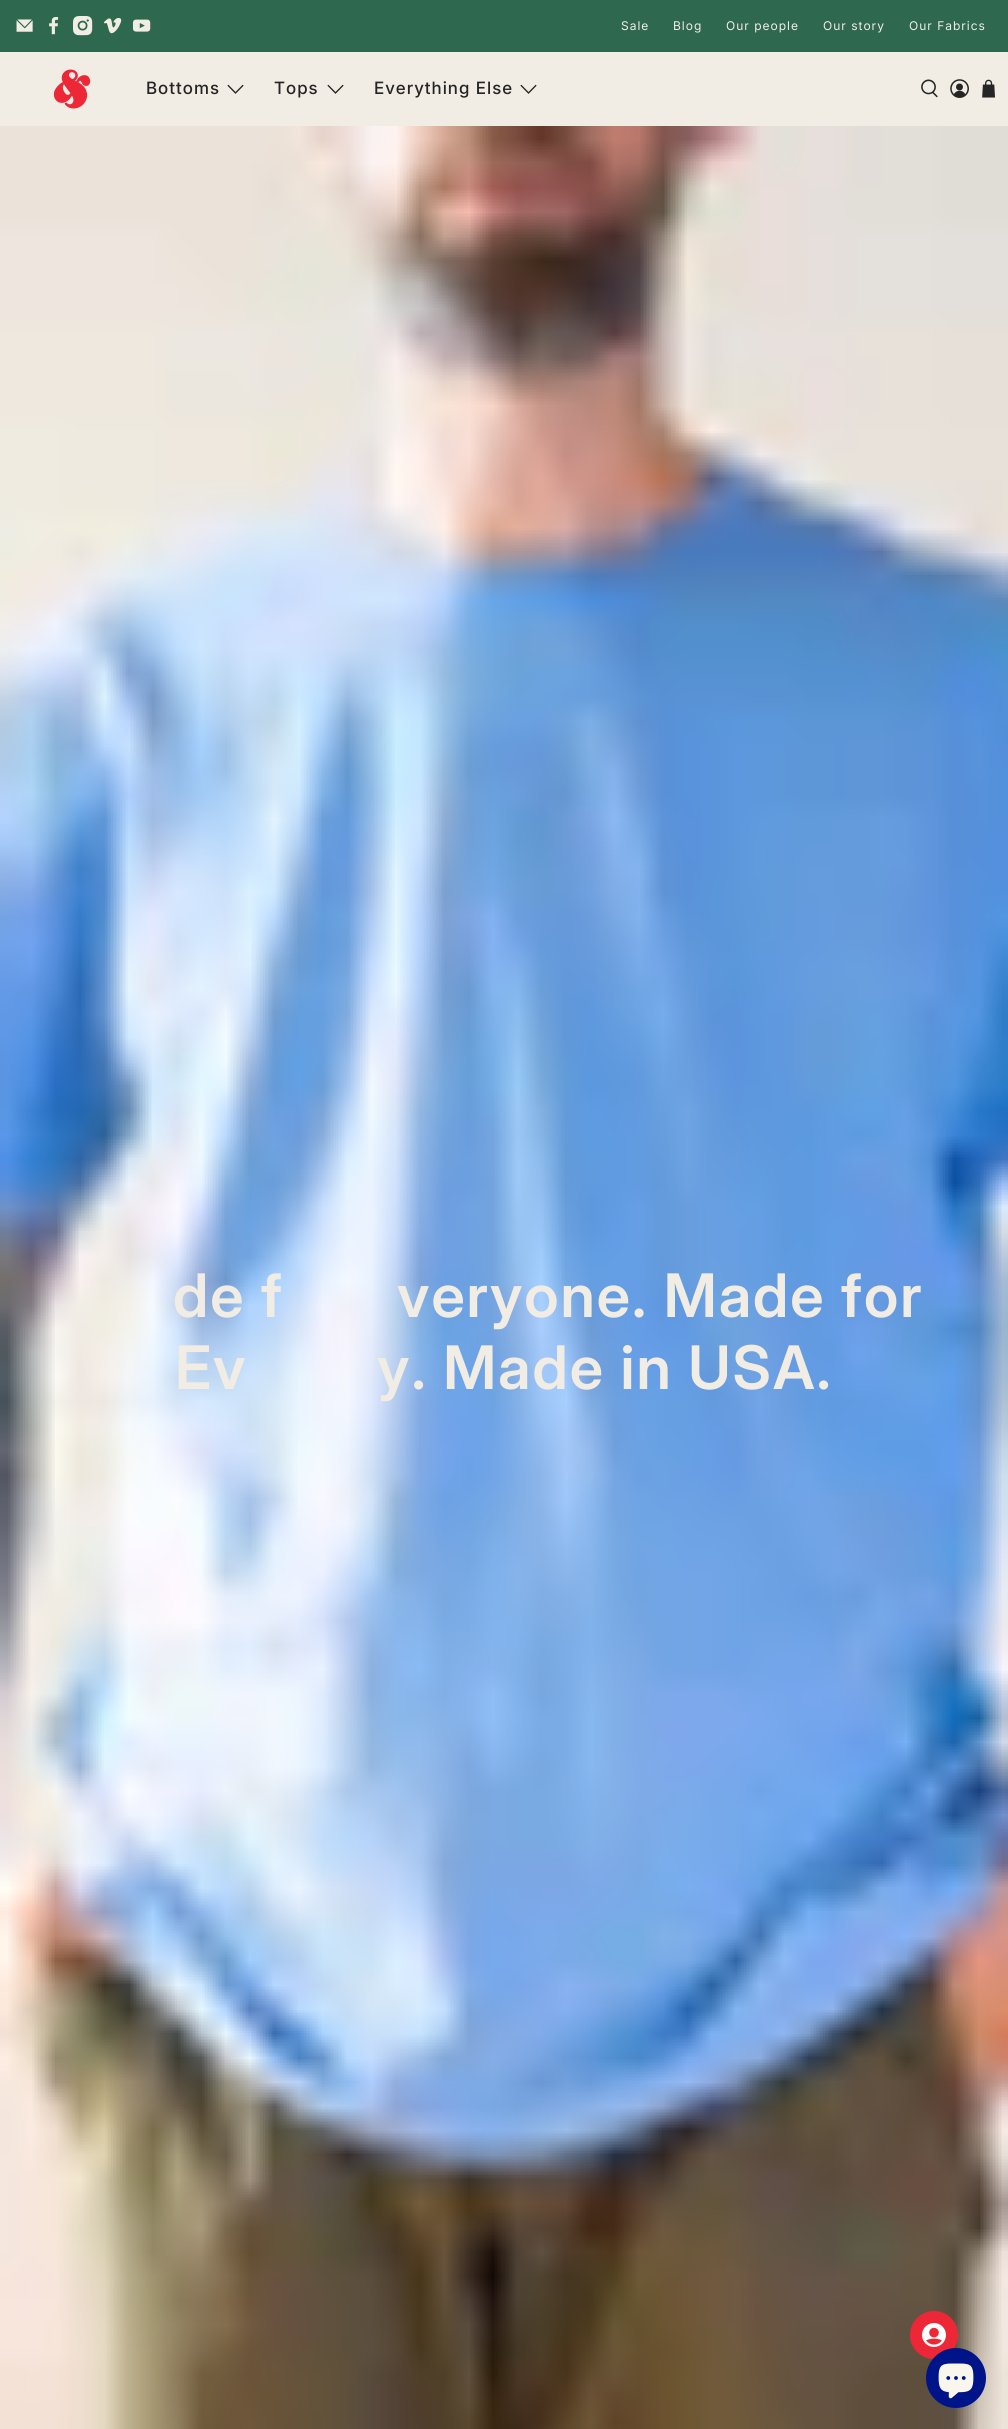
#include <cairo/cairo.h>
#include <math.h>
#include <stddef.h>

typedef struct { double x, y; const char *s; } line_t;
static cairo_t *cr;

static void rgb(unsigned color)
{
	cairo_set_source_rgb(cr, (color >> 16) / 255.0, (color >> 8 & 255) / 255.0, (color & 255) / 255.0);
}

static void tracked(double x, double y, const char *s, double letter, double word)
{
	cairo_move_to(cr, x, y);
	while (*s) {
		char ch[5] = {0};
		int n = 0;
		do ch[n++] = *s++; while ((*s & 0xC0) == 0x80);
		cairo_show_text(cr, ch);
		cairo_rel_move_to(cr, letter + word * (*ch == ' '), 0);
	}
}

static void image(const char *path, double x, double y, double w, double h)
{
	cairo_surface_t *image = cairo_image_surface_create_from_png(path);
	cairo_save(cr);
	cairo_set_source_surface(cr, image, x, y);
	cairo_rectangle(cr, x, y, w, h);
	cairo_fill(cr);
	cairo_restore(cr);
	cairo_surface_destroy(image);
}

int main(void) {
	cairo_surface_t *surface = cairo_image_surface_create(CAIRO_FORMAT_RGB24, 1008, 2429);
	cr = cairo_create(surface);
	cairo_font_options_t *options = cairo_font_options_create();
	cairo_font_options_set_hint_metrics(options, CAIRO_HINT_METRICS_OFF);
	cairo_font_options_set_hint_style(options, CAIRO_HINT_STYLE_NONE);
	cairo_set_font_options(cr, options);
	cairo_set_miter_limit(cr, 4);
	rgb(0xf1ede5);
	cairo_paint(cr);
	rgb(0x2e684e);
	cairo_rectangle(cr, 0, 0, 1008, 52);
	cairo_fill(cr);
	image("img/1.png", 16, 19, 17, 13);
	image("img/2.png", 49, 17, 10, 18);
	image("img/3.png", 73, 16, 20, 20);
	image("img/4.png", 104, 18, 18, 16);
	image("img/5.png", 132, 19, 19, 13);
	image("img/6.png", 53, 69, 38, 40);
	image("img/7.png", 227, 84, 17, 10);
	image("img/7.png", 327, 84, 17, 10);
	image("img/7.png", 520, 84, 17, 10);
	image("img/8.png", 921, 79, 17, 19);
	image("img/9.png", 950, 79, 19, 19);
	image("img/10.png", 982, 79, 13, 19);
	image("img/11.png", 0, 126, 1008, 2303);
	rgb(0xee2737);
	cairo_arc(cr, 934, 2335, 24, 0, 2 * M_PI);
	cairo_fill(cr);
	image("img/12.png", 922, 2323, 24, 24);
	rgb(0x001489);
	cairo_arc(cr, 956, 2378, 30, 0, 2 * M_PI);
	cairo_fill(cr);
	image("img/13.png", 938, 2363, 36, 36);
	cairo_select_font_face(cr, "Inter", CAIRO_FONT_SLANT_NORMAL, CAIRO_FONT_WEIGHT_NORMAL);
	cairo_set_font_size(cr, 12);
	rgb(0xf1ede5);
	{
		static const line_t items[] = {
			{621, 30, "Sale"},
			{673, 30, "Blog"},
			{726, 30, "Our people"},
			{823, 30, "Our story"},
			{909, 30, "Our Fabrics"},
		};
		for (size_t i = 0; i < sizeof items / sizeof *items; i++) {
			tracked(items[i].x, items[i].y, items[i].s, 1, 0);
		}
	}
	cairo_select_font_face(cr, "Inter Medium", CAIRO_FONT_SLANT_NORMAL, CAIRO_FONT_WEIGHT_NORMAL);
	cairo_set_font_size(cr, 17);
	rgb(0x252525);
	{
		static const line_t items[] = {
			{146, 94, "Bottoms"},
			{274, 94, "Tops"},
			{374, 94, "Everything Else"},
		};
		for (size_t i = 0; i < sizeof items / sizeof *items; i++) {
			tracked(items[i].x, items[i].y, items[i].s, 1, 0);
		}
	}
	cairo_select_font_face(cr, "Inter SemiBold", CAIRO_FONT_SLANT_NORMAL, CAIRO_FONT_WEIGHT_NORMAL);
	cairo_set_font_size(cr, 60);
	rgb(0xf1ede5);
	{
		static const line_t items[] = {
			{173, 1317, "de f"},
			{397, 1317, "veryone. Made for"},
			{175, 1389, "Ev"},
			{377, 1389, "y. Made in USA."},
		};
		for (size_t i = 0; i < sizeof items / sizeof *items; i++) {
			tracked(items[i].x, items[i].y, items[i].s, 2, 0);
		}
	}
	cairo_surface_write_to_png(surface, "page.png");
	cairo_font_options_destroy(options);
	cairo_destroy(cr);
	cairo_surface_destroy(surface);
	return 0;
}
